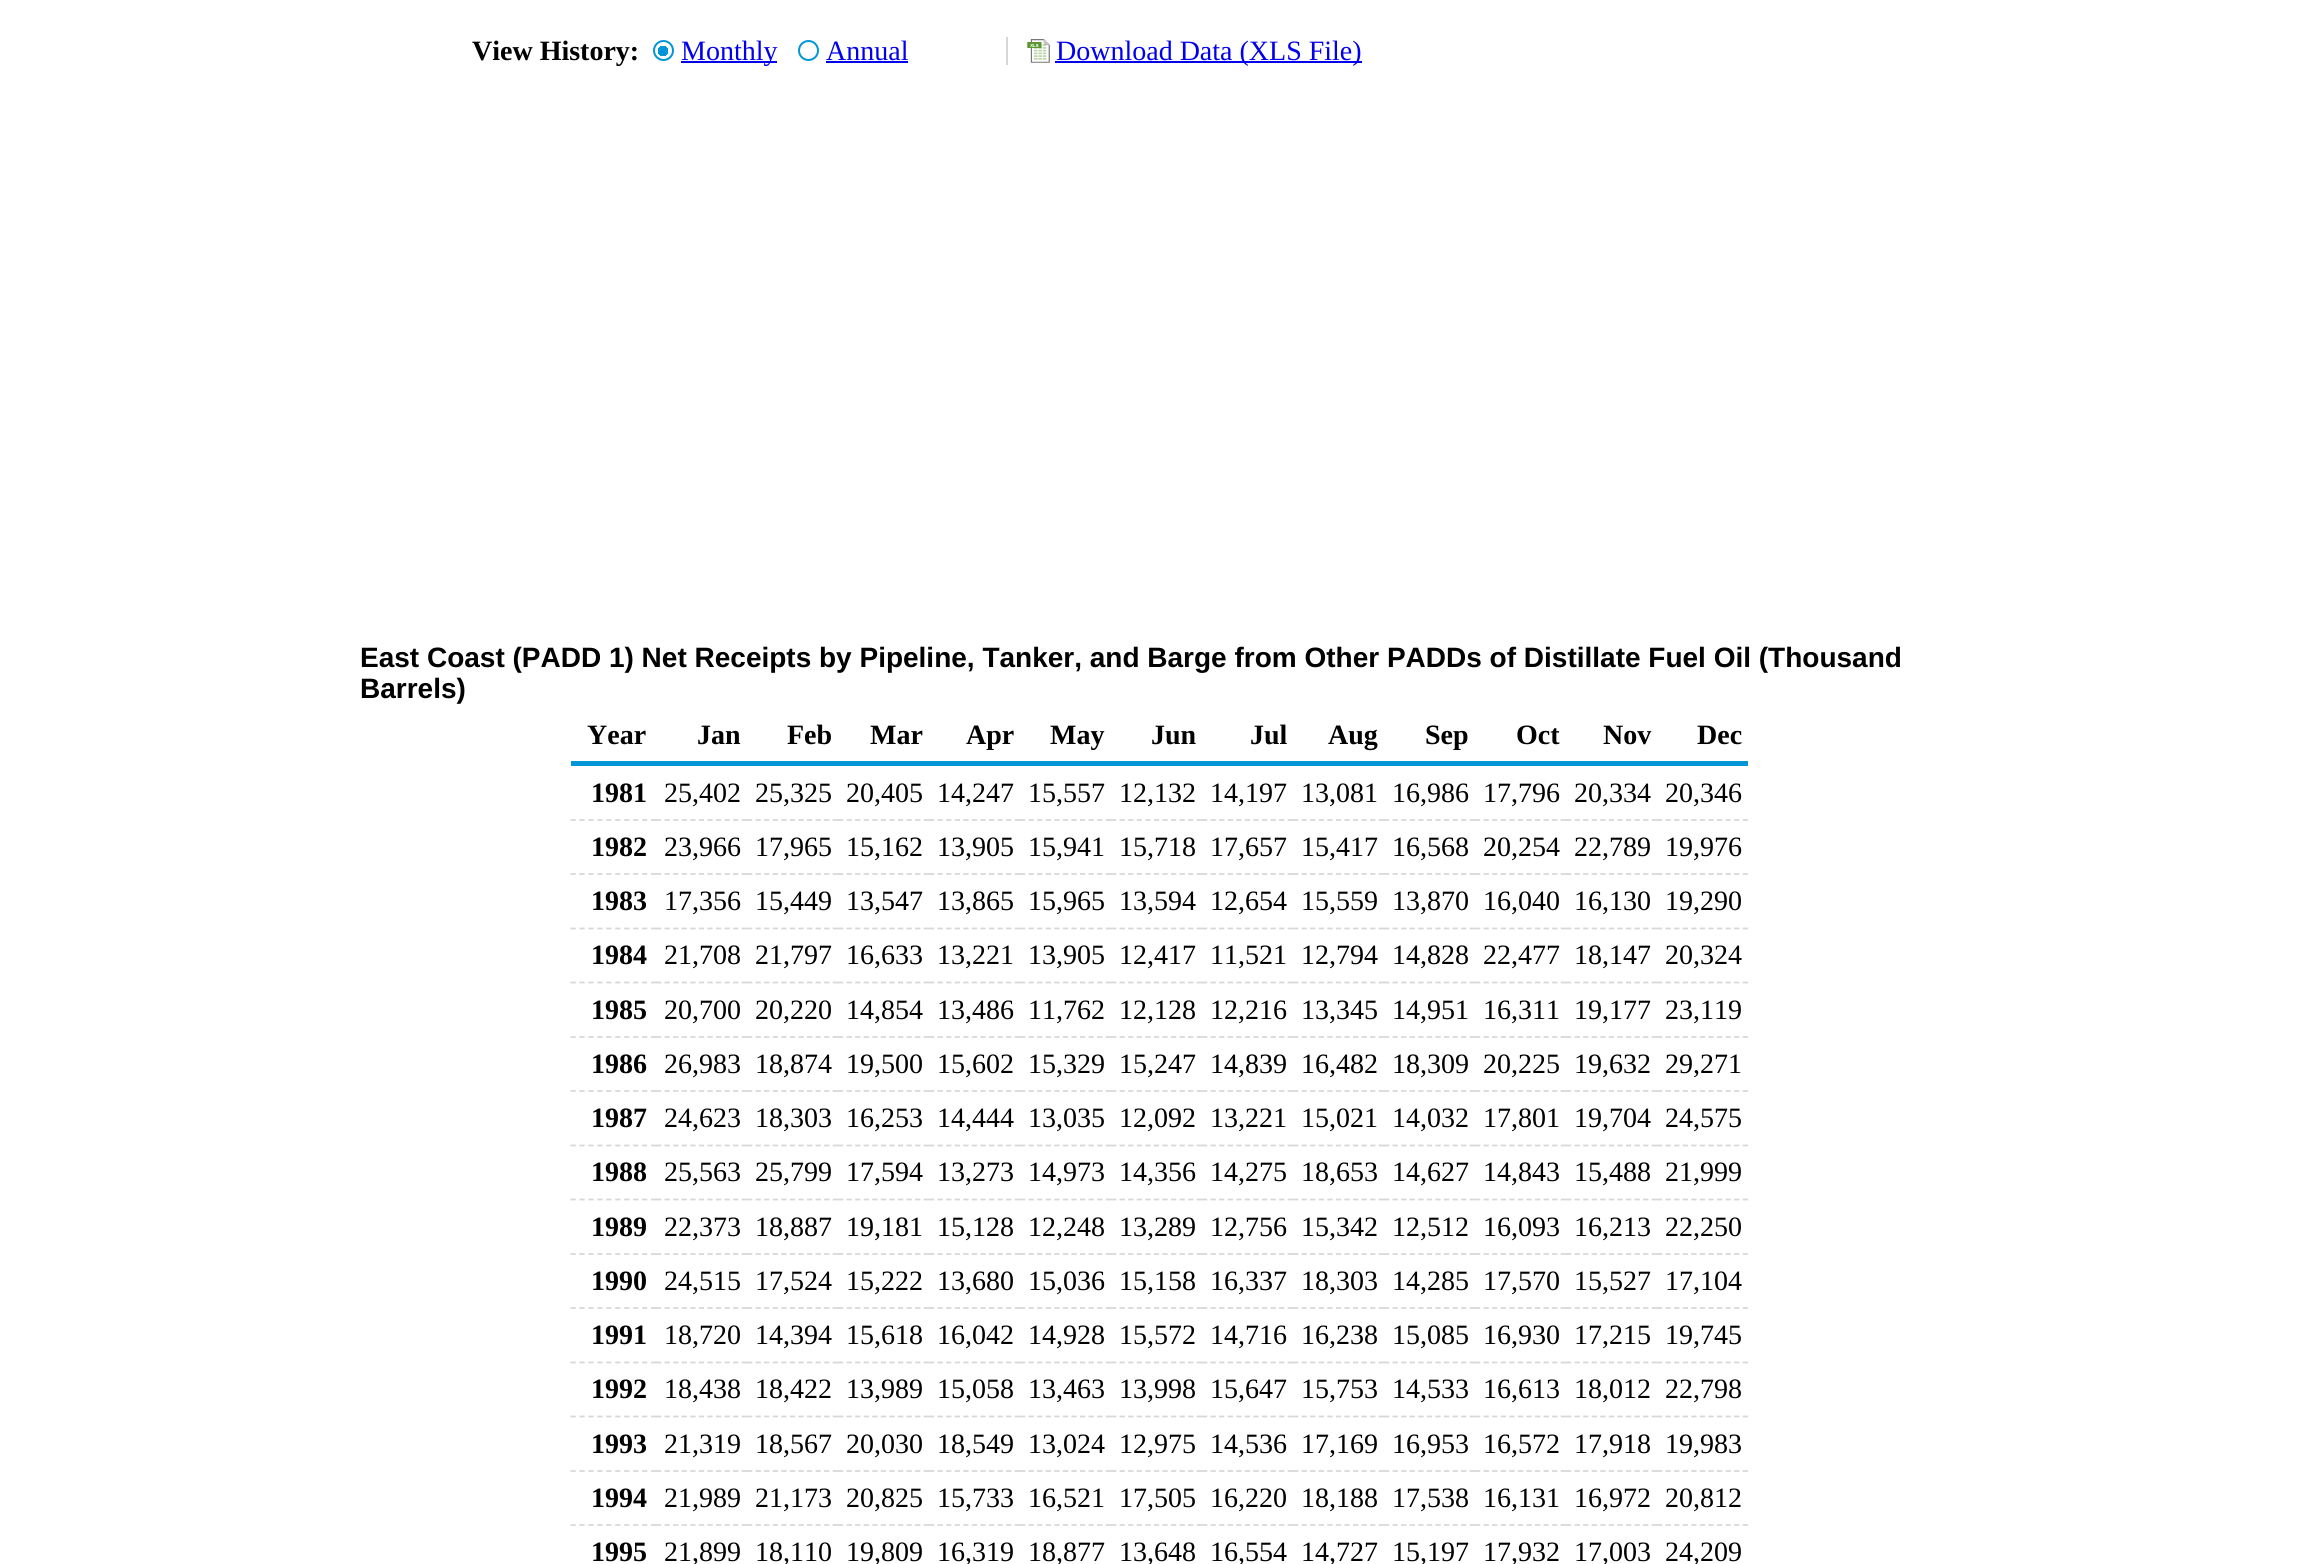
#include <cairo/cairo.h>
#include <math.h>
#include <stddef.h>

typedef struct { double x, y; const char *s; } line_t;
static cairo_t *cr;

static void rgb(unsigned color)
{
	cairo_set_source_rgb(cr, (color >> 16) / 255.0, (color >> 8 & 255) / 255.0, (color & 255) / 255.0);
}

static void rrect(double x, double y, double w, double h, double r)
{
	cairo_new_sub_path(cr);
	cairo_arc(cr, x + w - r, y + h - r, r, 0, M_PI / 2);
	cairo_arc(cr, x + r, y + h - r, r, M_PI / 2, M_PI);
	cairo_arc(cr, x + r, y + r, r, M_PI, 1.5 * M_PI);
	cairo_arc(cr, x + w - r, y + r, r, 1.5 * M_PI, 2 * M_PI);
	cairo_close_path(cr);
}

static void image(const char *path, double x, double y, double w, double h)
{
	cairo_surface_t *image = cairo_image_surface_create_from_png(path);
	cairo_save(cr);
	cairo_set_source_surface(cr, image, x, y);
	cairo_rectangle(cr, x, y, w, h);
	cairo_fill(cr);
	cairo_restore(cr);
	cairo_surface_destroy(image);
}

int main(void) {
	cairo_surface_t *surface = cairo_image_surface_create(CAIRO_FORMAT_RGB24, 2318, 1564);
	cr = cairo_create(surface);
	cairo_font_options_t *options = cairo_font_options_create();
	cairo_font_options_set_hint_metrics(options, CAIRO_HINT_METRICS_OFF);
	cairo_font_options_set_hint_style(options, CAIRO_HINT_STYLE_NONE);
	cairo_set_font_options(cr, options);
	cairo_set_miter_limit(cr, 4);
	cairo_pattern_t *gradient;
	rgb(0xffffff);
	cairo_paint(cr);
	cairo_save(cr);
	rrect(653, 40, 21, 21, 10.5);
	cairo_clip(cr);
	gradient = cairo_pattern_create_radial(663, 51, 0, 663, 51, 12);
	cairo_pattern_add_color_stop_rgba(gradient, 0, 0, 0.588, 0.843, 1);
	cairo_pattern_add_color_stop_rgba(gradient, 0.45, 0, 0.588, 0.843, 1);
	cairo_pattern_add_color_stop_rgba(gradient, 0.45, 1, 1, 1, 1);
	cairo_set_source(cr, gradient);
	cairo_pattern_destroy(gradient);
	cairo_rectangle(cr, 655, 42, 17, 18);
	cairo_fill(cr);
	cairo_restore(cr);
	cairo_arc(cr, 663.5, 50.5, 9.5, 0, 2 * M_PI);
	rgb(0x0096d7);
	cairo_stroke(cr);
	rgb(0x0000ee);
	cairo_rectangle(cr, 681, 61, 96, 2);
	cairo_fill(cr);
	cairo_arc(cr, 808.5, 50.5, 9.5, 0, 2 * M_PI);
	rgb(0x0096d7);
	cairo_stroke(cr);
	rgb(0x0000ee);
	cairo_rectangle(cr, 826, 61, 82, 2);
	cairo_fill(cr);
	rgb(0xd7d7d7);
	cairo_rectangle(cr, 1006, 37, 2, 28);
	cairo_fill(cr);
	image("img/1.png", 1027, 39, 23, 24);
	rgb(0x0000ee);
	cairo_rectangle(cr, 1055, 61, 307, 2);
	cairo_fill(cr);
	rgb(0x0096d7);
	cairo_rectangle(cr, 571, 761, 1177, 5);
	cairo_fill(cr);
	cairo_new_path(cr);
	cairo_move_to(cr, 570.5, 820);
	cairo_line_to(cr, 656, 820);
	rgb(0xd8d8d8);
	cairo_set_line_width(cr, 1.8);
	cairo_set_dash(cr, (double[]){5.25, 3.69}, 2, 0);
	cairo_stroke(cr);
	cairo_new_path(cr);
	cairo_move_to(cr, 656, 820);
	cairo_line_to(cr, 747, 820);
	cairo_set_dash(cr, (double[]){5.25, 3.32}, 2, 0);
	cairo_stroke(cr);
	cairo_new_path(cr);
	cairo_move_to(cr, 747, 820);
	cairo_line_to(cr, 838, 820);
	cairo_stroke(cr);
	cairo_new_path(cr);
	cairo_move_to(cr, 838, 820);
	cairo_line_to(cr, 929, 820);
	cairo_stroke(cr);
	cairo_new_path(cr);
	cairo_move_to(cr, 929, 820);
	cairo_line_to(cr, 1020, 820);
	cairo_stroke(cr);
	cairo_new_path(cr);
	cairo_move_to(cr, 1020, 820);
	cairo_line_to(cr, 1111, 820);
	cairo_stroke(cr);
	cairo_new_path(cr);
	cairo_move_to(cr, 1111, 820);
	cairo_line_to(cr, 1202, 820);
	cairo_stroke(cr);
	cairo_new_path(cr);
	cairo_move_to(cr, 1202, 820);
	cairo_line_to(cr, 1293, 820);
	cairo_stroke(cr);
	cairo_new_path(cr);
	cairo_move_to(cr, 1293, 820);
	cairo_line_to(cr, 1384, 820);
	cairo_stroke(cr);
	cairo_new_path(cr);
	cairo_move_to(cr, 1384, 820);
	cairo_line_to(cr, 1475, 820);
	cairo_stroke(cr);
	cairo_new_path(cr);
	cairo_move_to(cr, 1475, 820);
	cairo_line_to(cr, 1566, 820);
	cairo_stroke(cr);
	cairo_new_path(cr);
	cairo_move_to(cr, 1566, 820);
	cairo_line_to(cr, 1657, 820);
	cairo_stroke(cr);
	cairo_new_path(cr);
	cairo_move_to(cr, 1657, 820);
	cairo_line_to(cr, 1748, 820);
	cairo_stroke(cr);
	cairo_new_path(cr);
	cairo_move_to(cr, 570.5, 874);
	cairo_line_to(cr, 656, 874);
	cairo_set_dash(cr, (double[]){5.25, 3.69}, 2, 0);
	cairo_stroke(cr);
	cairo_new_path(cr);
	cairo_move_to(cr, 656, 874);
	cairo_line_to(cr, 747, 874);
	cairo_set_dash(cr, (double[]){5.25, 3.32}, 2, 0);
	cairo_stroke(cr);
	cairo_new_path(cr);
	cairo_move_to(cr, 747, 874);
	cairo_line_to(cr, 838, 874);
	cairo_stroke(cr);
	cairo_new_path(cr);
	cairo_move_to(cr, 838, 874);
	cairo_line_to(cr, 929, 874);
	cairo_stroke(cr);
	cairo_new_path(cr);
	cairo_move_to(cr, 929, 874);
	cairo_line_to(cr, 1020, 874);
	cairo_stroke(cr);
	cairo_new_path(cr);
	cairo_move_to(cr, 1020, 874);
	cairo_line_to(cr, 1111, 874);
	cairo_stroke(cr);
	cairo_new_path(cr);
	cairo_move_to(cr, 1111, 874);
	cairo_line_to(cr, 1202, 874);
	cairo_stroke(cr);
	cairo_new_path(cr);
	cairo_move_to(cr, 1202, 874);
	cairo_line_to(cr, 1293, 874);
	cairo_stroke(cr);
	cairo_new_path(cr);
	cairo_move_to(cr, 1293, 874);
	cairo_line_to(cr, 1384, 874);
	cairo_stroke(cr);
	cairo_new_path(cr);
	cairo_move_to(cr, 1384, 874);
	cairo_line_to(cr, 1475, 874);
	cairo_stroke(cr);
	cairo_new_path(cr);
	cairo_move_to(cr, 1475, 874);
	cairo_line_to(cr, 1566, 874);
	cairo_stroke(cr);
	cairo_new_path(cr);
	cairo_move_to(cr, 1566, 874);
	cairo_line_to(cr, 1657, 874);
	cairo_stroke(cr);
	cairo_new_path(cr);
	cairo_move_to(cr, 1657, 874);
	cairo_line_to(cr, 1748, 874);
	cairo_stroke(cr);
	cairo_new_path(cr);
	cairo_move_to(cr, 570.5, 928.5);
	cairo_line_to(cr, 656, 928.5);
	cairo_set_dash(cr, (double[]){5.25, 3.69}, 2, 0);
	cairo_stroke(cr);
	cairo_new_path(cr);
	cairo_move_to(cr, 656, 928.5);
	cairo_line_to(cr, 747, 928.5);
	cairo_set_dash(cr, (double[]){5.25, 3.32}, 2, 0);
	cairo_stroke(cr);
	cairo_new_path(cr);
	cairo_move_to(cr, 747, 928.5);
	cairo_line_to(cr, 838, 928.5);
	cairo_stroke(cr);
	cairo_new_path(cr);
	cairo_move_to(cr, 838, 928.5);
	cairo_line_to(cr, 929, 928.5);
	cairo_stroke(cr);
	cairo_new_path(cr);
	cairo_move_to(cr, 929, 928.5);
	cairo_line_to(cr, 1020, 928.5);
	cairo_stroke(cr);
	cairo_new_path(cr);
	cairo_move_to(cr, 1020, 928.5);
	cairo_line_to(cr, 1111, 928.5);
	cairo_stroke(cr);
	cairo_new_path(cr);
	cairo_move_to(cr, 1111, 928.5);
	cairo_line_to(cr, 1202, 928.5);
	cairo_stroke(cr);
	cairo_new_path(cr);
	cairo_move_to(cr, 1202, 928.5);
	cairo_line_to(cr, 1293, 928.5);
	cairo_stroke(cr);
	cairo_new_path(cr);
	cairo_move_to(cr, 1293, 928.5);
	cairo_line_to(cr, 1384, 928.5);
	cairo_stroke(cr);
	cairo_new_path(cr);
	cairo_move_to(cr, 1384, 928.5);
	cairo_line_to(cr, 1475, 928.5);
	cairo_stroke(cr);
	cairo_new_path(cr);
	cairo_move_to(cr, 1475, 928.5);
	cairo_line_to(cr, 1566, 928.5);
	cairo_stroke(cr);
	cairo_new_path(cr);
	cairo_move_to(cr, 1566, 928.5);
	cairo_line_to(cr, 1657, 928.5);
	cairo_stroke(cr);
	cairo_new_path(cr);
	cairo_move_to(cr, 1657, 928.5);
	cairo_line_to(cr, 1748, 928.5);
	cairo_stroke(cr);
	cairo_new_path(cr);
	cairo_move_to(cr, 570.5, 982.5);
	cairo_line_to(cr, 656, 982.5);
	cairo_set_dash(cr, (double[]){5.25, 3.69}, 2, 0);
	cairo_stroke(cr);
	cairo_new_path(cr);
	cairo_move_to(cr, 656, 982.5);
	cairo_line_to(cr, 747, 982.5);
	cairo_set_dash(cr, (double[]){5.25, 3.32}, 2, 0);
	cairo_stroke(cr);
	cairo_new_path(cr);
	cairo_move_to(cr, 747, 982.5);
	cairo_line_to(cr, 838, 982.5);
	cairo_stroke(cr);
	cairo_new_path(cr);
	cairo_move_to(cr, 838, 982.5);
	cairo_line_to(cr, 929, 982.5);
	cairo_stroke(cr);
	cairo_new_path(cr);
	cairo_move_to(cr, 929, 982.5);
	cairo_line_to(cr, 1020, 982.5);
	cairo_stroke(cr);
	cairo_new_path(cr);
	cairo_move_to(cr, 1020, 982.5);
	cairo_line_to(cr, 1111, 982.5);
	cairo_stroke(cr);
	cairo_new_path(cr);
	cairo_move_to(cr, 1111, 982.5);
	cairo_line_to(cr, 1202, 982.5);
	cairo_stroke(cr);
	cairo_new_path(cr);
	cairo_move_to(cr, 1202, 982.5);
	cairo_line_to(cr, 1293, 982.5);
	cairo_stroke(cr);
	cairo_new_path(cr);
	cairo_move_to(cr, 1293, 982.5);
	cairo_line_to(cr, 1384, 982.5);
	cairo_stroke(cr);
	cairo_new_path(cr);
	cairo_move_to(cr, 1384, 982.5);
	cairo_line_to(cr, 1475, 982.5);
	cairo_stroke(cr);
	cairo_new_path(cr);
	cairo_move_to(cr, 1475, 982.5);
	cairo_line_to(cr, 1566, 982.5);
	cairo_stroke(cr);
	cairo_new_path(cr);
	cairo_move_to(cr, 1566, 982.5);
	cairo_line_to(cr, 1657, 982.5);
	cairo_stroke(cr);
	cairo_new_path(cr);
	cairo_move_to(cr, 1657, 982.5);
	cairo_line_to(cr, 1748, 982.5);
	cairo_stroke(cr);
	cairo_new_path(cr);
	cairo_move_to(cr, 570.5, 1037);
	cairo_line_to(cr, 656, 1037);
	cairo_set_dash(cr, (double[]){5.25, 3.69}, 2, 0);
	cairo_stroke(cr);
	cairo_new_path(cr);
	cairo_move_to(cr, 656, 1037);
	cairo_line_to(cr, 747, 1037);
	cairo_set_dash(cr, (double[]){5.25, 3.32}, 2, 0);
	cairo_stroke(cr);
	cairo_new_path(cr);
	cairo_move_to(cr, 747, 1037);
	cairo_line_to(cr, 838, 1037);
	cairo_stroke(cr);
	cairo_new_path(cr);
	cairo_move_to(cr, 838, 1037);
	cairo_line_to(cr, 929, 1037);
	cairo_stroke(cr);
	cairo_new_path(cr);
	cairo_move_to(cr, 929, 1037);
	cairo_line_to(cr, 1020, 1037);
	cairo_stroke(cr);
	cairo_new_path(cr);
	cairo_move_to(cr, 1020, 1037);
	cairo_line_to(cr, 1111, 1037);
	cairo_stroke(cr);
	cairo_new_path(cr);
	cairo_move_to(cr, 1111, 1037);
	cairo_line_to(cr, 1202, 1037);
	cairo_stroke(cr);
	cairo_new_path(cr);
	cairo_move_to(cr, 1202, 1037);
	cairo_line_to(cr, 1293, 1037);
	cairo_stroke(cr);
	cairo_new_path(cr);
	cairo_move_to(cr, 1293, 1037);
	cairo_line_to(cr, 1384, 1037);
	cairo_stroke(cr);
	cairo_new_path(cr);
	cairo_move_to(cr, 1384, 1037);
	cairo_line_to(cr, 1475, 1037);
	cairo_stroke(cr);
	cairo_new_path(cr);
	cairo_move_to(cr, 1475, 1037);
	cairo_line_to(cr, 1566, 1037);
	cairo_stroke(cr);
	cairo_new_path(cr);
	cairo_move_to(cr, 1566, 1037);
	cairo_line_to(cr, 1657, 1037);
	cairo_stroke(cr);
	cairo_new_path(cr);
	cairo_move_to(cr, 1657, 1037);
	cairo_line_to(cr, 1748, 1037);
	cairo_stroke(cr);
	cairo_new_path(cr);
	cairo_move_to(cr, 570.5, 1091);
	cairo_line_to(cr, 656, 1091);
	cairo_set_dash(cr, (double[]){5.25, 3.69}, 2, 0);
	cairo_stroke(cr);
	cairo_new_path(cr);
	cairo_move_to(cr, 656, 1091);
	cairo_line_to(cr, 747, 1091);
	cairo_set_dash(cr, (double[]){5.25, 3.32}, 2, 0);
	cairo_stroke(cr);
	cairo_new_path(cr);
	cairo_move_to(cr, 747, 1091);
	cairo_line_to(cr, 838, 1091);
	cairo_stroke(cr);
	cairo_new_path(cr);
	cairo_move_to(cr, 838, 1091);
	cairo_line_to(cr, 929, 1091);
	cairo_stroke(cr);
	cairo_new_path(cr);
	cairo_move_to(cr, 929, 1091);
	cairo_line_to(cr, 1020, 1091);
	cairo_stroke(cr);
	cairo_new_path(cr);
	cairo_move_to(cr, 1020, 1091);
	cairo_line_to(cr, 1111, 1091);
	cairo_stroke(cr);
	cairo_new_path(cr);
	cairo_move_to(cr, 1111, 1091);
	cairo_line_to(cr, 1202, 1091);
	cairo_stroke(cr);
	cairo_new_path(cr);
	cairo_move_to(cr, 1202, 1091);
	cairo_line_to(cr, 1293, 1091);
	cairo_stroke(cr);
	cairo_new_path(cr);
	cairo_move_to(cr, 1293, 1091);
	cairo_line_to(cr, 1384, 1091);
	cairo_stroke(cr);
	cairo_new_path(cr);
	cairo_move_to(cr, 1384, 1091);
	cairo_line_to(cr, 1475, 1091);
	cairo_stroke(cr);
	cairo_new_path(cr);
	cairo_move_to(cr, 1475, 1091);
	cairo_line_to(cr, 1566, 1091);
	cairo_stroke(cr);
	cairo_new_path(cr);
	cairo_move_to(cr, 1566, 1091);
	cairo_line_to(cr, 1657, 1091);
	cairo_stroke(cr);
	cairo_new_path(cr);
	cairo_move_to(cr, 1657, 1091);
	cairo_line_to(cr, 1748, 1091);
	cairo_stroke(cr);
	cairo_new_path(cr);
	cairo_move_to(cr, 570.5, 1145.5);
	cairo_line_to(cr, 656, 1145.5);
	cairo_set_dash(cr, (double[]){5.25, 3.69}, 2, 0);
	cairo_stroke(cr);
	cairo_new_path(cr);
	cairo_move_to(cr, 656, 1145.5);
	cairo_line_to(cr, 747, 1145.5);
	cairo_set_dash(cr, (double[]){5.25, 3.32}, 2, 0);
	cairo_stroke(cr);
	cairo_new_path(cr);
	cairo_move_to(cr, 747, 1145.5);
	cairo_line_to(cr, 838, 1145.5);
	cairo_stroke(cr);
	cairo_new_path(cr);
	cairo_move_to(cr, 838, 1145.5);
	cairo_line_to(cr, 929, 1145.5);
	cairo_stroke(cr);
	cairo_new_path(cr);
	cairo_move_to(cr, 929, 1145.5);
	cairo_line_to(cr, 1020, 1145.5);
	cairo_stroke(cr);
	cairo_new_path(cr);
	cairo_move_to(cr, 1020, 1145.5);
	cairo_line_to(cr, 1111, 1145.5);
	cairo_stroke(cr);
	cairo_new_path(cr);
	cairo_move_to(cr, 1111, 1145.5);
	cairo_line_to(cr, 1202, 1145.5);
	cairo_stroke(cr);
	cairo_new_path(cr);
	cairo_move_to(cr, 1202, 1145.5);
	cairo_line_to(cr, 1293, 1145.5);
	cairo_stroke(cr);
	cairo_new_path(cr);
	cairo_move_to(cr, 1293, 1145.5);
	cairo_line_to(cr, 1384, 1145.5);
	cairo_stroke(cr);
	cairo_new_path(cr);
	cairo_move_to(cr, 1384, 1145.5);
	cairo_line_to(cr, 1475, 1145.5);
	cairo_stroke(cr);
	cairo_new_path(cr);
	cairo_move_to(cr, 1475, 1145.5);
	cairo_line_to(cr, 1566, 1145.5);
	cairo_stroke(cr);
	cairo_new_path(cr);
	cairo_move_to(cr, 1566, 1145.5);
	cairo_line_to(cr, 1657, 1145.5);
	cairo_stroke(cr);
	cairo_new_path(cr);
	cairo_move_to(cr, 1657, 1145.5);
	cairo_line_to(cr, 1748, 1145.5);
	cairo_stroke(cr);
	cairo_new_path(cr);
	cairo_move_to(cr, 570.5, 1199.5);
	cairo_line_to(cr, 656, 1199.5);
	cairo_set_dash(cr, (double[]){5.25, 3.69}, 2, 0);
	cairo_stroke(cr);
	cairo_new_path(cr);
	cairo_move_to(cr, 656, 1199.5);
	cairo_line_to(cr, 747, 1199.5);
	cairo_set_dash(cr, (double[]){5.25, 3.32}, 2, 0);
	cairo_stroke(cr);
	cairo_new_path(cr);
	cairo_move_to(cr, 747, 1199.5);
	cairo_line_to(cr, 838, 1199.5);
	cairo_stroke(cr);
	cairo_new_path(cr);
	cairo_move_to(cr, 838, 1199.5);
	cairo_line_to(cr, 929, 1199.5);
	cairo_stroke(cr);
	cairo_new_path(cr);
	cairo_move_to(cr, 929, 1199.5);
	cairo_line_to(cr, 1020, 1199.5);
	cairo_stroke(cr);
	cairo_new_path(cr);
	cairo_move_to(cr, 1020, 1199.5);
	cairo_line_to(cr, 1111, 1199.5);
	cairo_stroke(cr);
	cairo_new_path(cr);
	cairo_move_to(cr, 1111, 1199.5);
	cairo_line_to(cr, 1202, 1199.5);
	cairo_stroke(cr);
	cairo_new_path(cr);
	cairo_move_to(cr, 1202, 1199.5);
	cairo_line_to(cr, 1293, 1199.5);
	cairo_stroke(cr);
	cairo_new_path(cr);
	cairo_move_to(cr, 1293, 1199.5);
	cairo_line_to(cr, 1384, 1199.5);
	cairo_stroke(cr);
	cairo_new_path(cr);
	cairo_move_to(cr, 1384, 1199.5);
	cairo_line_to(cr, 1475, 1199.5);
	cairo_stroke(cr);
	cairo_new_path(cr);
	cairo_move_to(cr, 1475, 1199.5);
	cairo_line_to(cr, 1566, 1199.5);
	cairo_stroke(cr);
	cairo_new_path(cr);
	cairo_move_to(cr, 1566, 1199.5);
	cairo_line_to(cr, 1657, 1199.5);
	cairo_stroke(cr);
	cairo_new_path(cr);
	cairo_move_to(cr, 1657, 1199.5);
	cairo_line_to(cr, 1748, 1199.5);
	cairo_stroke(cr);
	cairo_new_path(cr);
	cairo_move_to(cr, 570.5, 1254);
	cairo_line_to(cr, 656, 1254);
	cairo_set_dash(cr, (double[]){5.25, 3.69}, 2, 0);
	cairo_stroke(cr);
	cairo_new_path(cr);
	cairo_move_to(cr, 656, 1254);
	cairo_line_to(cr, 747, 1254);
	cairo_set_dash(cr, (double[]){5.25, 3.32}, 2, 0);
	cairo_stroke(cr);
	cairo_new_path(cr);
	cairo_move_to(cr, 747, 1254);
	cairo_line_to(cr, 838, 1254);
	cairo_stroke(cr);
	cairo_new_path(cr);
	cairo_move_to(cr, 838, 1254);
	cairo_line_to(cr, 929, 1254);
	cairo_stroke(cr);
	cairo_new_path(cr);
	cairo_move_to(cr, 929, 1254);
	cairo_line_to(cr, 1020, 1254);
	cairo_stroke(cr);
	cairo_new_path(cr);
	cairo_move_to(cr, 1020, 1254);
	cairo_line_to(cr, 1111, 1254);
	cairo_stroke(cr);
	cairo_new_path(cr);
	cairo_move_to(cr, 1111, 1254);
	cairo_line_to(cr, 1202, 1254);
	cairo_stroke(cr);
	cairo_new_path(cr);
	cairo_move_to(cr, 1202, 1254);
	cairo_line_to(cr, 1293, 1254);
	cairo_stroke(cr);
	cairo_new_path(cr);
	cairo_move_to(cr, 1293, 1254);
	cairo_line_to(cr, 1384, 1254);
	cairo_stroke(cr);
	cairo_new_path(cr);
	cairo_move_to(cr, 1384, 1254);
	cairo_line_to(cr, 1475, 1254);
	cairo_stroke(cr);
	cairo_new_path(cr);
	cairo_move_to(cr, 1475, 1254);
	cairo_line_to(cr, 1566, 1254);
	cairo_stroke(cr);
	cairo_new_path(cr);
	cairo_move_to(cr, 1566, 1254);
	cairo_line_to(cr, 1657, 1254);
	cairo_stroke(cr);
	cairo_new_path(cr);
	cairo_move_to(cr, 1657, 1254);
	cairo_line_to(cr, 1748, 1254);
	cairo_stroke(cr);
	cairo_new_path(cr);
	cairo_move_to(cr, 570.5, 1308);
	cairo_line_to(cr, 656, 1308);
	cairo_set_dash(cr, (double[]){5.25, 3.69}, 2, 0);
	cairo_stroke(cr);
	cairo_new_path(cr);
	cairo_move_to(cr, 656, 1308);
	cairo_line_to(cr, 747, 1308);
	cairo_set_dash(cr, (double[]){5.25, 3.32}, 2, 0);
	cairo_stroke(cr);
	cairo_new_path(cr);
	cairo_move_to(cr, 747, 1308);
	cairo_line_to(cr, 838, 1308);
	cairo_stroke(cr);
	cairo_new_path(cr);
	cairo_move_to(cr, 838, 1308);
	cairo_line_to(cr, 929, 1308);
	cairo_stroke(cr);
	cairo_new_path(cr);
	cairo_move_to(cr, 929, 1308);
	cairo_line_to(cr, 1020, 1308);
	cairo_stroke(cr);
	cairo_new_path(cr);
	cairo_move_to(cr, 1020, 1308);
	cairo_line_to(cr, 1111, 1308);
	cairo_stroke(cr);
	cairo_new_path(cr);
	cairo_move_to(cr, 1111, 1308);
	cairo_line_to(cr, 1202, 1308);
	cairo_stroke(cr);
	cairo_new_path(cr);
	cairo_move_to(cr, 1202, 1308);
	cairo_line_to(cr, 1293, 1308);
	cairo_stroke(cr);
	cairo_new_path(cr);
	cairo_move_to(cr, 1293, 1308);
	cairo_line_to(cr, 1384, 1308);
	cairo_stroke(cr);
	cairo_new_path(cr);
	cairo_move_to(cr, 1384, 1308);
	cairo_line_to(cr, 1475, 1308);
	cairo_stroke(cr);
	cairo_new_path(cr);
	cairo_move_to(cr, 1475, 1308);
	cairo_line_to(cr, 1566, 1308);
	cairo_stroke(cr);
	cairo_new_path(cr);
	cairo_move_to(cr, 1566, 1308);
	cairo_line_to(cr, 1657, 1308);
	cairo_stroke(cr);
	cairo_new_path(cr);
	cairo_move_to(cr, 1657, 1308);
	cairo_line_to(cr, 1748, 1308);
	cairo_stroke(cr);
	cairo_new_path(cr);
	cairo_move_to(cr, 570.5, 1362.5);
	cairo_line_to(cr, 656, 1362.5);
	cairo_set_dash(cr, (double[]){5.25, 3.69}, 2, 0);
	cairo_stroke(cr);
	cairo_new_path(cr);
	cairo_move_to(cr, 656, 1362.5);
	cairo_line_to(cr, 747, 1362.5);
	cairo_set_dash(cr, (double[]){5.25, 3.32}, 2, 0);
	cairo_stroke(cr);
	cairo_new_path(cr);
	cairo_move_to(cr, 747, 1362.5);
	cairo_line_to(cr, 838, 1362.5);
	cairo_stroke(cr);
	cairo_new_path(cr);
	cairo_move_to(cr, 838, 1362.5);
	cairo_line_to(cr, 929, 1362.5);
	cairo_stroke(cr);
	cairo_new_path(cr);
	cairo_move_to(cr, 929, 1362.5);
	cairo_line_to(cr, 1020, 1362.5);
	cairo_stroke(cr);
	cairo_new_path(cr);
	cairo_move_to(cr, 1020, 1362.5);
	cairo_line_to(cr, 1111, 1362.5);
	cairo_stroke(cr);
	cairo_new_path(cr);
	cairo_move_to(cr, 1111, 1362.5);
	cairo_line_to(cr, 1202, 1362.5);
	cairo_stroke(cr);
	cairo_new_path(cr);
	cairo_move_to(cr, 1202, 1362.5);
	cairo_line_to(cr, 1293, 1362.5);
	cairo_stroke(cr);
	cairo_new_path(cr);
	cairo_move_to(cr, 1293, 1362.5);
	cairo_line_to(cr, 1384, 1362.5);
	cairo_stroke(cr);
	cairo_new_path(cr);
	cairo_move_to(cr, 1384, 1362.5);
	cairo_line_to(cr, 1475, 1362.5);
	cairo_stroke(cr);
	cairo_new_path(cr);
	cairo_move_to(cr, 1475, 1362.5);
	cairo_line_to(cr, 1566, 1362.5);
	cairo_stroke(cr);
	cairo_new_path(cr);
	cairo_move_to(cr, 1566, 1362.5);
	cairo_line_to(cr, 1657, 1362.5);
	cairo_stroke(cr);
	cairo_new_path(cr);
	cairo_move_to(cr, 1657, 1362.5);
	cairo_line_to(cr, 1748, 1362.5);
	cairo_stroke(cr);
	cairo_new_path(cr);
	cairo_move_to(cr, 570.5, 1416.5);
	cairo_line_to(cr, 656, 1416.5);
	cairo_set_dash(cr, (double[]){5.25, 3.69}, 2, 0);
	cairo_stroke(cr);
	cairo_new_path(cr);
	cairo_move_to(cr, 656, 1416.5);
	cairo_line_to(cr, 747, 1416.5);
	cairo_set_dash(cr, (double[]){5.25, 3.32}, 2, 0);
	cairo_stroke(cr);
	cairo_new_path(cr);
	cairo_move_to(cr, 747, 1416.5);
	cairo_line_to(cr, 838, 1416.5);
	cairo_stroke(cr);
	cairo_new_path(cr);
	cairo_move_to(cr, 838, 1416.5);
	cairo_line_to(cr, 929, 1416.5);
	cairo_stroke(cr);
	cairo_new_path(cr);
	cairo_move_to(cr, 929, 1416.5);
	cairo_line_to(cr, 1020, 1416.5);
	cairo_stroke(cr);
	cairo_new_path(cr);
	cairo_move_to(cr, 1020, 1416.5);
	cairo_line_to(cr, 1111, 1416.5);
	cairo_stroke(cr);
	cairo_new_path(cr);
	cairo_move_to(cr, 1111, 1416.5);
	cairo_line_to(cr, 1202, 1416.5);
	cairo_stroke(cr);
	cairo_new_path(cr);
	cairo_move_to(cr, 1202, 1416.5);
	cairo_line_to(cr, 1293, 1416.5);
	cairo_stroke(cr);
	cairo_new_path(cr);
	cairo_move_to(cr, 1293, 1416.5);
	cairo_line_to(cr, 1384, 1416.5);
	cairo_stroke(cr);
	cairo_new_path(cr);
	cairo_move_to(cr, 1384, 1416.5);
	cairo_line_to(cr, 1475, 1416.5);
	cairo_stroke(cr);
	cairo_new_path(cr);
	cairo_move_to(cr, 1475, 1416.5);
	cairo_line_to(cr, 1566, 1416.5);
	cairo_stroke(cr);
	cairo_new_path(cr);
	cairo_move_to(cr, 1566, 1416.5);
	cairo_line_to(cr, 1657, 1416.5);
	cairo_stroke(cr);
	cairo_new_path(cr);
	cairo_move_to(cr, 1657, 1416.5);
	cairo_line_to(cr, 1748, 1416.5);
	cairo_stroke(cr);
	cairo_new_path(cr);
	cairo_move_to(cr, 570.5, 1471);
	cairo_line_to(cr, 656, 1471);
	cairo_set_dash(cr, (double[]){5.25, 3.69}, 2, 0);
	cairo_stroke(cr);
	cairo_new_path(cr);
	cairo_move_to(cr, 656, 1471);
	cairo_line_to(cr, 747, 1471);
	cairo_set_dash(cr, (double[]){5.25, 3.32}, 2, 0);
	cairo_stroke(cr);
	cairo_new_path(cr);
	cairo_move_to(cr, 747, 1471);
	cairo_line_to(cr, 838, 1471);
	cairo_stroke(cr);
	cairo_new_path(cr);
	cairo_move_to(cr, 838, 1471);
	cairo_line_to(cr, 929, 1471);
	cairo_stroke(cr);
	cairo_new_path(cr);
	cairo_move_to(cr, 929, 1471);
	cairo_line_to(cr, 1020, 1471);
	cairo_stroke(cr);
	cairo_new_path(cr);
	cairo_move_to(cr, 1020, 1471);
	cairo_line_to(cr, 1111, 1471);
	cairo_stroke(cr);
	cairo_new_path(cr);
	cairo_move_to(cr, 1111, 1471);
	cairo_line_to(cr, 1202, 1471);
	cairo_stroke(cr);
	cairo_new_path(cr);
	cairo_move_to(cr, 1202, 1471);
	cairo_line_to(cr, 1293, 1471);
	cairo_stroke(cr);
	cairo_new_path(cr);
	cairo_move_to(cr, 1293, 1471);
	cairo_line_to(cr, 1384, 1471);
	cairo_stroke(cr);
	cairo_new_path(cr);
	cairo_move_to(cr, 1384, 1471);
	cairo_line_to(cr, 1475, 1471);
	cairo_stroke(cr);
	cairo_new_path(cr);
	cairo_move_to(cr, 1475, 1471);
	cairo_line_to(cr, 1566, 1471);
	cairo_stroke(cr);
	cairo_new_path(cr);
	cairo_move_to(cr, 1566, 1471);
	cairo_line_to(cr, 1657, 1471);
	cairo_stroke(cr);
	cairo_new_path(cr);
	cairo_move_to(cr, 1657, 1471);
	cairo_line_to(cr, 1748, 1471);
	cairo_stroke(cr);
	cairo_new_path(cr);
	cairo_move_to(cr, 570.5, 1525);
	cairo_line_to(cr, 656, 1525);
	cairo_set_dash(cr, (double[]){5.25, 3.69}, 2, 0);
	cairo_stroke(cr);
	cairo_new_path(cr);
	cairo_move_to(cr, 656, 1525);
	cairo_line_to(cr, 747, 1525);
	cairo_set_dash(cr, (double[]){5.25, 3.32}, 2, 0);
	cairo_stroke(cr);
	cairo_new_path(cr);
	cairo_move_to(cr, 747, 1525);
	cairo_line_to(cr, 838, 1525);
	cairo_stroke(cr);
	cairo_new_path(cr);
	cairo_move_to(cr, 838, 1525);
	cairo_line_to(cr, 929, 1525);
	cairo_stroke(cr);
	cairo_new_path(cr);
	cairo_move_to(cr, 929, 1525);
	cairo_line_to(cr, 1020, 1525);
	cairo_stroke(cr);
	cairo_new_path(cr);
	cairo_move_to(cr, 1020, 1525);
	cairo_line_to(cr, 1111, 1525);
	cairo_stroke(cr);
	cairo_new_path(cr);
	cairo_move_to(cr, 1111, 1525);
	cairo_line_to(cr, 1202, 1525);
	cairo_stroke(cr);
	cairo_new_path(cr);
	cairo_move_to(cr, 1202, 1525);
	cairo_line_to(cr, 1293, 1525);
	cairo_stroke(cr);
	cairo_new_path(cr);
	cairo_move_to(cr, 1293, 1525);
	cairo_line_to(cr, 1384, 1525);
	cairo_stroke(cr);
	cairo_new_path(cr);
	cairo_move_to(cr, 1384, 1525);
	cairo_line_to(cr, 1475, 1525);
	cairo_stroke(cr);
	cairo_new_path(cr);
	cairo_move_to(cr, 1475, 1525);
	cairo_line_to(cr, 1566, 1525);
	cairo_stroke(cr);
	cairo_new_path(cr);
	cairo_move_to(cr, 1566, 1525);
	cairo_line_to(cr, 1657, 1525);
	cairo_stroke(cr);
	cairo_new_path(cr);
	cairo_move_to(cr, 1657, 1525);
	cairo_line_to(cr, 1748, 1525);
	cairo_stroke(cr);
	cairo_select_font_face(cr, "Liberation Serif", CAIRO_FONT_SLANT_NORMAL, CAIRO_FONT_WEIGHT_BOLD);
	cairo_set_font_size(cr, 28);
	rgb(0x000000);
	cairo_move_to(cr, 472, 60);
	cairo_show_text(cr, "View History:");
	cairo_select_font_face(cr, "Liberation Serif", CAIRO_FONT_SLANT_NORMAL, CAIRO_FONT_WEIGHT_NORMAL);
	rgb(0x0000ee);
	{
		static const line_t items[] = {
			{681, 60, "Monthly"},
			{826, 60, "Annual"},
			{1056, 60, "Download Data (XLS File)"},
		};
		for (size_t i = 0; i < sizeof items / sizeof *items; i++) {
			cairo_move_to(cr, items[i].x, items[i].y);
			cairo_show_text(cr, items[i].s);
		}
	}
	cairo_select_font_face(cr, "Liberation Sans", CAIRO_FONT_SLANT_NORMAL, CAIRO_FONT_WEIGHT_BOLD);
	rgb(0x000000);
	cairo_move_to(cr, 360, 667);
	cairo_show_text(cr, "East Coast (PADD 1) Net Receipts by Pipeline, Tanker, and Barge from Other PADDs of Distillate Fuel Oil (Thousand");
	cairo_move_to(cr, 360, 698);
	cairo_show_text(cr, "Barrels)");
	cairo_select_font_face(cr, "Liberation Serif", CAIRO_FONT_SLANT_NORMAL, CAIRO_FONT_WEIGHT_BOLD);
	{
		static const line_t items[] = {
			{587, 744, "Year"},
			{697, 744, "Jan"},
			{787, 744, "Feb"},
			{870, 744, "Mar"},
			{966, 744, "Apr"},
			{1050, 744, "May"},
			{1151, 744, "Jun"},
			{1250, 744, "Jul"},
			{1328, 744, "Aug"},
			{1425, 744, "Sep"},
			{1516, 744, "Oct"},
			{1603, 744, "Nov"},
			{1697, 744, "Dec"},
			{591, 802, "1981"},
		};
		for (size_t i = 0; i < sizeof items / sizeof *items; i++) {
			cairo_move_to(cr, items[i].x, items[i].y);
			cairo_show_text(cr, items[i].s);
		}
	}
	cairo_select_font_face(cr, "Liberation Serif", CAIRO_FONT_SLANT_NORMAL, CAIRO_FONT_WEIGHT_NORMAL);
	{
		static const line_t items[] = {
			{664, 802, "25,402"},
			{755, 802, "25,325"},
			{846, 802, "20,405"},
			{937, 802, "14,247"},
			{1028, 802, "15,557"},
			{1119, 802, "12,132"},
			{1210, 802, "14,197"},
			{1301, 802, "13,081"},
			{1392, 802, "16,986"},
			{1483, 802, "17,796"},
			{1574, 802, "20,334"},
			{1665, 802, "20,346"},
		};
		for (size_t i = 0; i < sizeof items / sizeof *items; i++) {
			cairo_move_to(cr, items[i].x, items[i].y);
			cairo_show_text(cr, items[i].s);
		}
	}
	cairo_select_font_face(cr, "Liberation Serif", CAIRO_FONT_SLANT_NORMAL, CAIRO_FONT_WEIGHT_BOLD);
	cairo_move_to(cr, 591, 856);
	cairo_show_text(cr, "1982");
	cairo_select_font_face(cr, "Liberation Serif", CAIRO_FONT_SLANT_NORMAL, CAIRO_FONT_WEIGHT_NORMAL);
	{
		static const line_t items[] = {
			{664, 856, "23,966"},
			{755, 856, "17,965"},
			{846, 856, "15,162"},
			{937, 856, "13,905"},
			{1028, 856, "15,941"},
			{1119, 856, "15,718"},
			{1210, 856, "17,657"},
			{1301, 856, "15,417"},
			{1392, 856, "16,568"},
			{1483, 856, "20,254"},
			{1574, 856, "22,789"},
			{1665, 856, "19,976"},
		};
		for (size_t i = 0; i < sizeof items / sizeof *items; i++) {
			cairo_move_to(cr, items[i].x, items[i].y);
			cairo_show_text(cr, items[i].s);
		}
	}
	cairo_select_font_face(cr, "Liberation Serif", CAIRO_FONT_SLANT_NORMAL, CAIRO_FONT_WEIGHT_BOLD);
	cairo_move_to(cr, 591, 910);
	cairo_show_text(cr, "1983");
	cairo_select_font_face(cr, "Liberation Serif", CAIRO_FONT_SLANT_NORMAL, CAIRO_FONT_WEIGHT_NORMAL);
	{
		static const line_t items[] = {
			{664, 910, "17,356"},
			{755, 910, "15,449"},
			{846, 910, "13,547"},
			{937, 910, "13,865"},
			{1028, 910, "15,965"},
			{1119, 910, "13,594"},
			{1210, 910, "12,654"},
			{1301, 910, "15,559"},
			{1392, 910, "13,870"},
			{1483, 910, "16,040"},
			{1574, 910, "16,130"},
			{1665, 910, "19,290"},
		};
		for (size_t i = 0; i < sizeof items / sizeof *items; i++) {
			cairo_move_to(cr, items[i].x, items[i].y);
			cairo_show_text(cr, items[i].s);
		}
	}
	cairo_select_font_face(cr, "Liberation Serif", CAIRO_FONT_SLANT_NORMAL, CAIRO_FONT_WEIGHT_BOLD);
	cairo_move_to(cr, 591, 964);
	cairo_show_text(cr, "1984");
	cairo_select_font_face(cr, "Liberation Serif", CAIRO_FONT_SLANT_NORMAL, CAIRO_FONT_WEIGHT_NORMAL);
	{
		static const line_t items[] = {
			{664, 964, "21,708"},
			{755, 964, "21,797"},
			{846, 964, "16,633"},
			{937, 964, "13,221"},
			{1028, 964, "13,905"},
			{1119, 964, "12,417"},
			{1210, 964, "11,521"},
			{1301, 964, "12,794"},
			{1392, 964, "14,828"},
			{1483, 964, "22,477"},
			{1574, 964, "18,147"},
			{1665, 964, "20,324"},
		};
		for (size_t i = 0; i < sizeof items / sizeof *items; i++) {
			cairo_move_to(cr, items[i].x, items[i].y);
			cairo_show_text(cr, items[i].s);
		}
	}
	cairo_select_font_face(cr, "Liberation Serif", CAIRO_FONT_SLANT_NORMAL, CAIRO_FONT_WEIGHT_BOLD);
	cairo_move_to(cr, 591, 1019);
	cairo_show_text(cr, "1985");
	cairo_select_font_face(cr, "Liberation Serif", CAIRO_FONT_SLANT_NORMAL, CAIRO_FONT_WEIGHT_NORMAL);
	{
		static const line_t items[] = {
			{664, 1019, "20,700"},
			{755, 1019, "20,220"},
			{846, 1019, "14,854"},
			{937, 1019, "13,486"},
			{1028, 1019, "11,762"},
			{1119, 1019, "12,128"},
			{1210, 1019, "12,216"},
			{1301, 1019, "13,345"},
			{1392, 1019, "14,951"},
			{1483, 1019, "16,311"},
			{1574, 1019, "19,177"},
			{1665, 1019, "23,119"},
		};
		for (size_t i = 0; i < sizeof items / sizeof *items; i++) {
			cairo_move_to(cr, items[i].x, items[i].y);
			cairo_show_text(cr, items[i].s);
		}
	}
	cairo_select_font_face(cr, "Liberation Serif", CAIRO_FONT_SLANT_NORMAL, CAIRO_FONT_WEIGHT_BOLD);
	cairo_move_to(cr, 591, 1073);
	cairo_show_text(cr, "1986");
	cairo_select_font_face(cr, "Liberation Serif", CAIRO_FONT_SLANT_NORMAL, CAIRO_FONT_WEIGHT_NORMAL);
	{
		static const line_t items[] = {
			{664, 1073, "26,983"},
			{755, 1073, "18,874"},
			{846, 1073, "19,500"},
			{937, 1073, "15,602"},
			{1028, 1073, "15,329"},
			{1119, 1073, "15,247"},
			{1210, 1073, "14,839"},
			{1301, 1073, "16,482"},
			{1392, 1073, "18,309"},
			{1483, 1073, "20,225"},
			{1574, 1073, "19,632"},
			{1665, 1073, "29,271"},
		};
		for (size_t i = 0; i < sizeof items / sizeof *items; i++) {
			cairo_move_to(cr, items[i].x, items[i].y);
			cairo_show_text(cr, items[i].s);
		}
	}
	cairo_select_font_face(cr, "Liberation Serif", CAIRO_FONT_SLANT_NORMAL, CAIRO_FONT_WEIGHT_BOLD);
	cairo_move_to(cr, 591, 1127);
	cairo_show_text(cr, "1987");
	cairo_select_font_face(cr, "Liberation Serif", CAIRO_FONT_SLANT_NORMAL, CAIRO_FONT_WEIGHT_NORMAL);
	{
		static const line_t items[] = {
			{664, 1127, "24,623"},
			{755, 1127, "18,303"},
			{846, 1127, "16,253"},
			{937, 1127, "14,444"},
			{1028, 1127, "13,035"},
			{1119, 1127, "12,092"},
			{1210, 1127, "13,221"},
			{1301, 1127, "15,021"},
			{1392, 1127, "14,032"},
			{1483, 1127, "17,801"},
			{1574, 1127, "19,704"},
			{1665, 1127, "24,575"},
		};
		for (size_t i = 0; i < sizeof items / sizeof *items; i++) {
			cairo_move_to(cr, items[i].x, items[i].y);
			cairo_show_text(cr, items[i].s);
		}
	}
	cairo_select_font_face(cr, "Liberation Serif", CAIRO_FONT_SLANT_NORMAL, CAIRO_FONT_WEIGHT_BOLD);
	cairo_move_to(cr, 591, 1181);
	cairo_show_text(cr, "1988");
	cairo_select_font_face(cr, "Liberation Serif", CAIRO_FONT_SLANT_NORMAL, CAIRO_FONT_WEIGHT_NORMAL);
	{
		static const line_t items[] = {
			{664, 1181, "25,563"},
			{755, 1181, "25,799"},
			{846, 1181, "17,594"},
			{937, 1181, "13,273"},
			{1028, 1181, "14,973"},
			{1119, 1181, "14,356"},
			{1210, 1181, "14,275"},
			{1301, 1181, "18,653"},
			{1392, 1181, "14,627"},
			{1483, 1181, "14,843"},
			{1574, 1181, "15,488"},
			{1665, 1181, "21,999"},
		};
		for (size_t i = 0; i < sizeof items / sizeof *items; i++) {
			cairo_move_to(cr, items[i].x, items[i].y);
			cairo_show_text(cr, items[i].s);
		}
	}
	cairo_select_font_face(cr, "Liberation Serif", CAIRO_FONT_SLANT_NORMAL, CAIRO_FONT_WEIGHT_BOLD);
	cairo_move_to(cr, 591, 1236);
	cairo_show_text(cr, "1989");
	cairo_select_font_face(cr, "Liberation Serif", CAIRO_FONT_SLANT_NORMAL, CAIRO_FONT_WEIGHT_NORMAL);
	{
		static const line_t items[] = {
			{664, 1236, "22,373"},
			{755, 1236, "18,887"},
			{846, 1236, "19,181"},
			{937, 1236, "15,128"},
			{1028, 1236, "12,248"},
			{1119, 1236, "13,289"},
			{1210, 1236, "12,756"},
			{1301, 1236, "15,342"},
			{1392, 1236, "12,512"},
			{1483, 1236, "16,093"},
			{1574, 1236, "16,213"},
			{1665, 1236, "22,250"},
		};
		for (size_t i = 0; i < sizeof items / sizeof *items; i++) {
			cairo_move_to(cr, items[i].x, items[i].y);
			cairo_show_text(cr, items[i].s);
		}
	}
	cairo_select_font_face(cr, "Liberation Serif", CAIRO_FONT_SLANT_NORMAL, CAIRO_FONT_WEIGHT_BOLD);
	cairo_move_to(cr, 591, 1290);
	cairo_show_text(cr, "1990");
	cairo_select_font_face(cr, "Liberation Serif", CAIRO_FONT_SLANT_NORMAL, CAIRO_FONT_WEIGHT_NORMAL);
	{
		static const line_t items[] = {
			{664, 1290, "24,515"},
			{755, 1290, "17,524"},
			{846, 1290, "15,222"},
			{937, 1290, "13,680"},
			{1028, 1290, "15,036"},
			{1119, 1290, "15,158"},
			{1210, 1290, "16,337"},
			{1301, 1290, "18,303"},
			{1392, 1290, "14,285"},
			{1483, 1290, "17,570"},
			{1574, 1290, "15,527"},
			{1665, 1290, "17,104"},
		};
		for (size_t i = 0; i < sizeof items / sizeof *items; i++) {
			cairo_move_to(cr, items[i].x, items[i].y);
			cairo_show_text(cr, items[i].s);
		}
	}
	cairo_select_font_face(cr, "Liberation Serif", CAIRO_FONT_SLANT_NORMAL, CAIRO_FONT_WEIGHT_BOLD);
	cairo_move_to(cr, 591, 1344);
	cairo_show_text(cr, "1991");
	cairo_select_font_face(cr, "Liberation Serif", CAIRO_FONT_SLANT_NORMAL, CAIRO_FONT_WEIGHT_NORMAL);
	{
		static const line_t items[] = {
			{664, 1344, "18,720"},
			{755, 1344, "14,394"},
			{846, 1344, "15,618"},
			{937, 1344, "16,042"},
			{1028, 1344, "14,928"},
			{1119, 1344, "15,572"},
			{1210, 1344, "14,716"},
			{1301, 1344, "16,238"},
			{1392, 1344, "15,085"},
			{1483, 1344, "16,930"},
			{1574, 1344, "17,215"},
			{1665, 1344, "19,745"},
		};
		for (size_t i = 0; i < sizeof items / sizeof *items; i++) {
			cairo_move_to(cr, items[i].x, items[i].y);
			cairo_show_text(cr, items[i].s);
		}
	}
	cairo_select_font_face(cr, "Liberation Serif", CAIRO_FONT_SLANT_NORMAL, CAIRO_FONT_WEIGHT_BOLD);
	cairo_move_to(cr, 591, 1398);
	cairo_show_text(cr, "1992");
	cairo_select_font_face(cr, "Liberation Serif", CAIRO_FONT_SLANT_NORMAL, CAIRO_FONT_WEIGHT_NORMAL);
	{
		static const line_t items[] = {
			{664, 1398, "18,438"},
			{755, 1398, "18,422"},
			{846, 1398, "13,989"},
			{937, 1398, "15,058"},
			{1028, 1398, "13,463"},
			{1119, 1398, "13,998"},
			{1210, 1398, "15,647"},
			{1301, 1398, "15,753"},
			{1392, 1398, "14,533"},
			{1483, 1398, "16,613"},
			{1574, 1398, "18,012"},
			{1665, 1398, "22,798"},
		};
		for (size_t i = 0; i < sizeof items / sizeof *items; i++) {
			cairo_move_to(cr, items[i].x, items[i].y);
			cairo_show_text(cr, items[i].s);
		}
	}
	cairo_select_font_face(cr, "Liberation Serif", CAIRO_FONT_SLANT_NORMAL, CAIRO_FONT_WEIGHT_BOLD);
	cairo_move_to(cr, 591, 1453);
	cairo_show_text(cr, "1993");
	cairo_select_font_face(cr, "Liberation Serif", CAIRO_FONT_SLANT_NORMAL, CAIRO_FONT_WEIGHT_NORMAL);
	{
		static const line_t items[] = {
			{664, 1453, "21,319"},
			{755, 1453, "18,567"},
			{846, 1453, "20,030"},
			{937, 1453, "18,549"},
			{1028, 1453, "13,024"},
			{1119, 1453, "12,975"},
			{1210, 1453, "14,536"},
			{1301, 1453, "17,169"},
			{1392, 1453, "16,953"},
			{1483, 1453, "16,572"},
			{1574, 1453, "17,918"},
			{1665, 1453, "19,983"},
		};
		for (size_t i = 0; i < sizeof items / sizeof *items; i++) {
			cairo_move_to(cr, items[i].x, items[i].y);
			cairo_show_text(cr, items[i].s);
		}
	}
	cairo_select_font_face(cr, "Liberation Serif", CAIRO_FONT_SLANT_NORMAL, CAIRO_FONT_WEIGHT_BOLD);
	cairo_move_to(cr, 591, 1507);
	cairo_show_text(cr, "1994");
	cairo_select_font_face(cr, "Liberation Serif", CAIRO_FONT_SLANT_NORMAL, CAIRO_FONT_WEIGHT_NORMAL);
	{
		static const line_t items[] = {
			{664, 1507, "21,989"},
			{755, 1507, "21,173"},
			{846, 1507, "20,825"},
			{937, 1507, "15,733"},
			{1028, 1507, "16,521"},
			{1119, 1507, "17,505"},
			{1210, 1507, "16,220"},
			{1301, 1507, "18,188"},
			{1392, 1507, "17,538"},
			{1483, 1507, "16,131"},
			{1574, 1507, "16,972"},
			{1665, 1507, "20,812"},
		};
		for (size_t i = 0; i < sizeof items / sizeof *items; i++) {
			cairo_move_to(cr, items[i].x, items[i].y);
			cairo_show_text(cr, items[i].s);
		}
	}
	cairo_select_font_face(cr, "Liberation Serif", CAIRO_FONT_SLANT_NORMAL, CAIRO_FONT_WEIGHT_BOLD);
	cairo_move_to(cr, 591, 1561);
	cairo_show_text(cr, "1995");
	cairo_select_font_face(cr, "Liberation Serif", CAIRO_FONT_SLANT_NORMAL, CAIRO_FONT_WEIGHT_NORMAL);
	{
		static const line_t items[] = {
			{664, 1561, "21,899"},
			{755, 1561, "18,110"},
			{846, 1561, "19,809"},
			{937, 1561, "16,319"},
			{1028, 1561, "18,877"},
			{1119, 1561, "13,648"},
			{1210, 1561, "16,554"},
			{1301, 1561, "14,727"},
			{1392, 1561, "15,197"},
			{1483, 1561, "17,932"},
			{1574, 1561, "17,003"},
			{1665, 1561, "24,209"},
		};
		for (size_t i = 0; i < sizeof items / sizeof *items; i++) {
			cairo_move_to(cr, items[i].x, items[i].y);
			cairo_show_text(cr, items[i].s);
		}
	}
	cairo_surface_write_to_png(surface, "page.png");
	cairo_font_options_destroy(options);
	cairo_destroy(cr);
	cairo_surface_destroy(surface);
	return 0;
}
